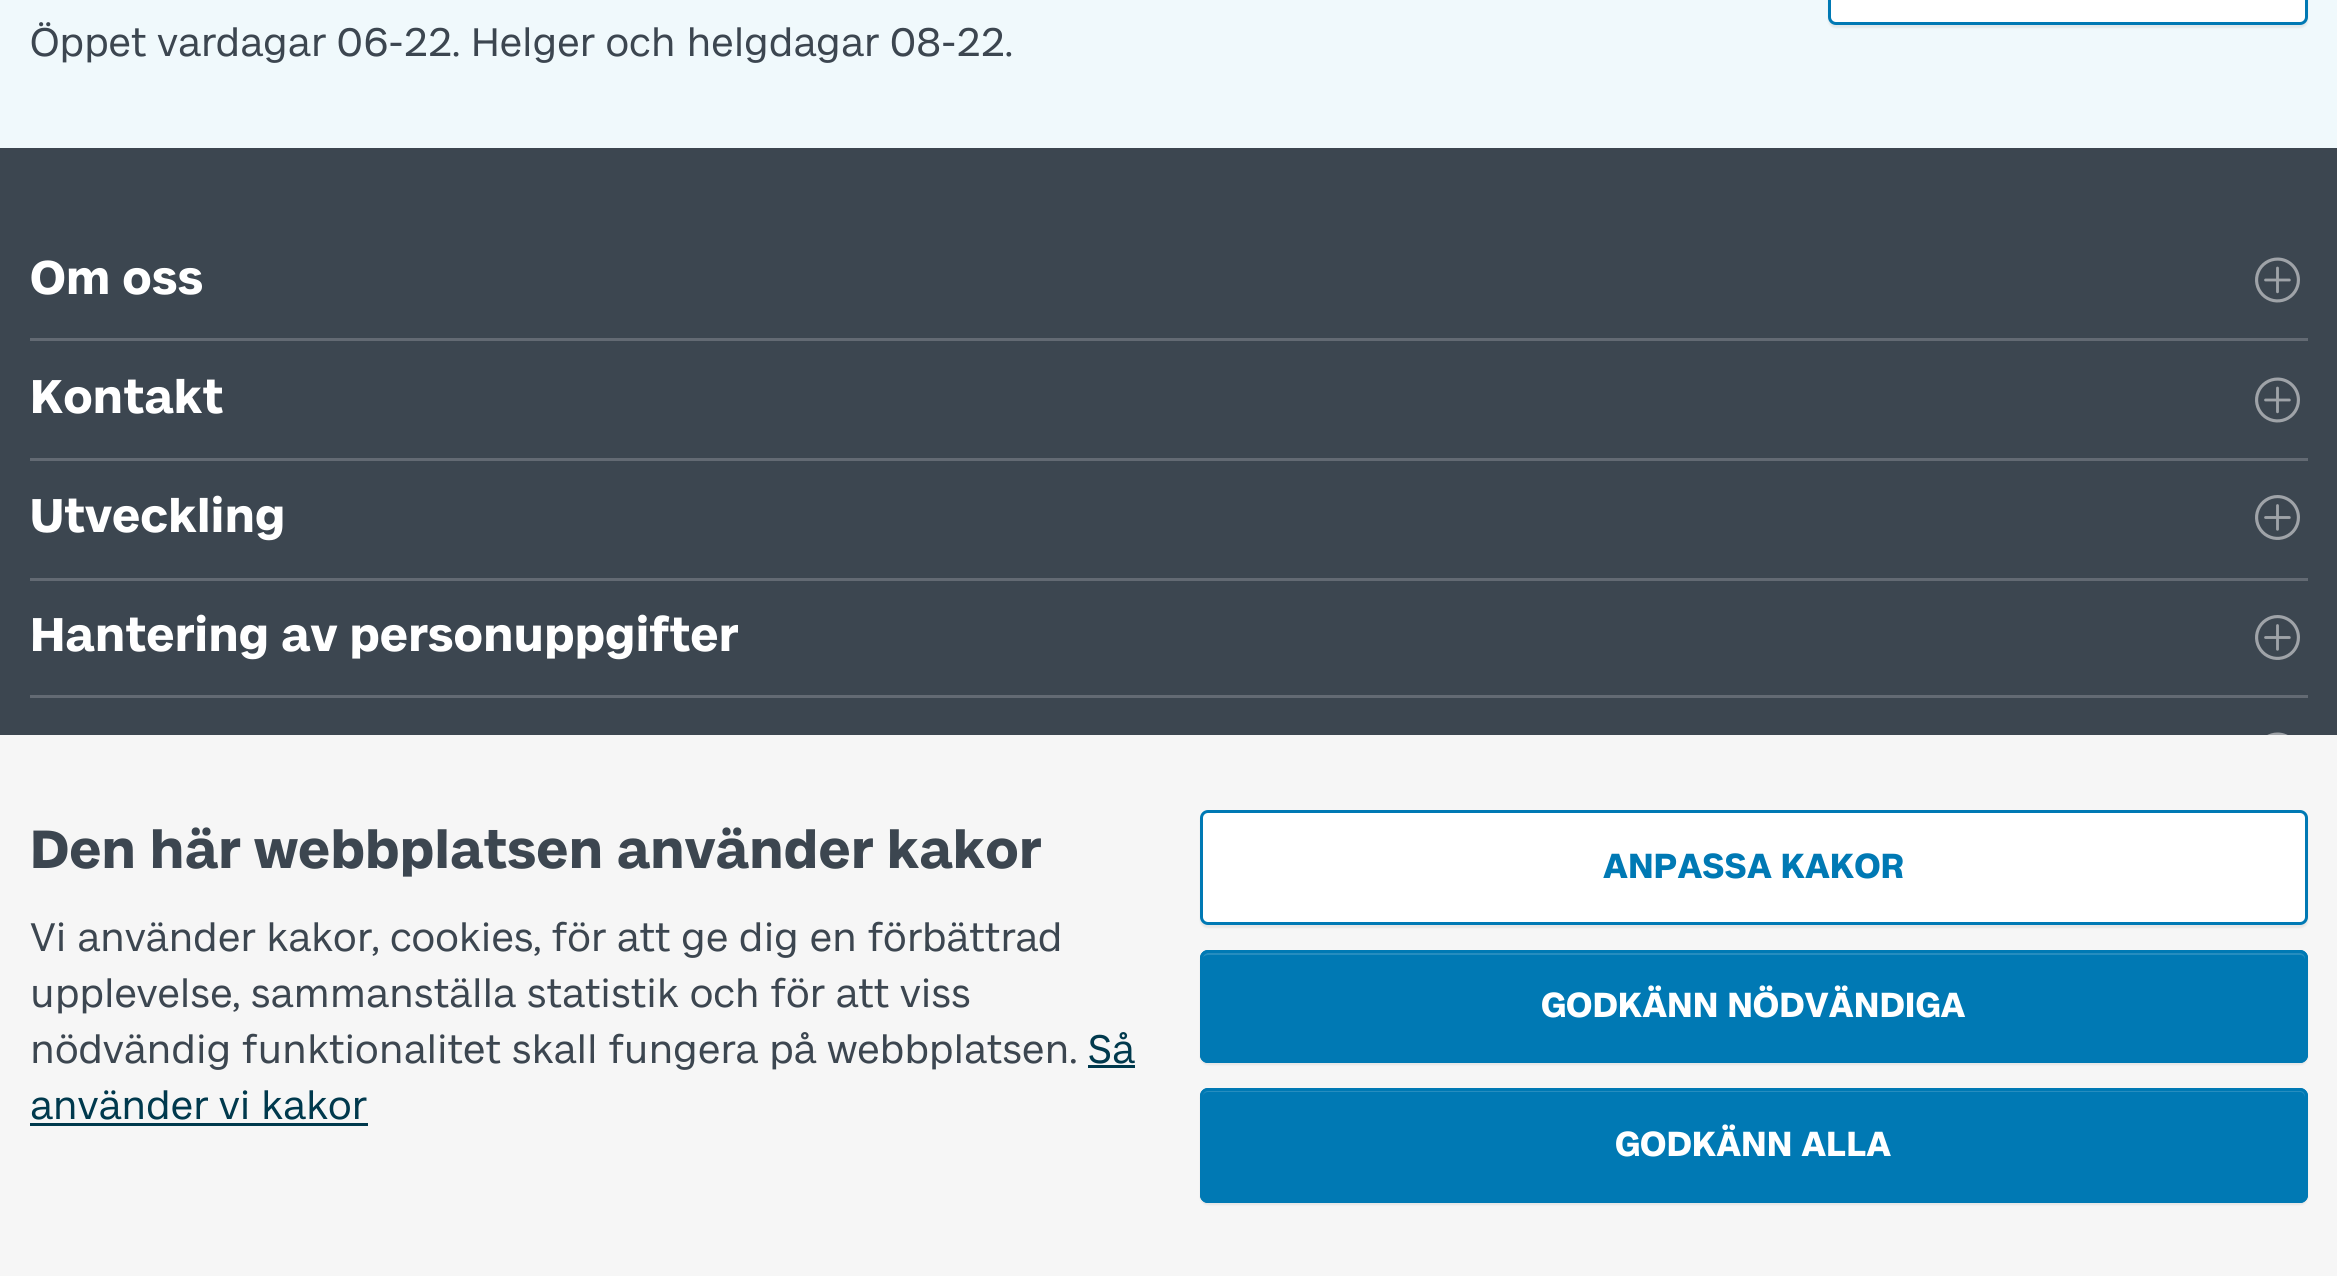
#include <cairo/cairo.h>
#include <math.h>
#include <stddef.h>

typedef struct { double x, y; const char *s; } line_t;
typedef struct { double x, y, w, h; unsigned color; } box_t;
static cairo_t *cr;

static void rgb(unsigned color)
{
	cairo_set_source_rgb(cr, (color >> 16) / 255.0, (color >> 8 & 255) / 255.0, (color & 255) / 255.0);
}

static void rrect(double x, double y, double w, double h, double r)
{
	cairo_new_sub_path(cr);
	cairo_arc(cr, x + w - r, y + h - r, r, 0, M_PI / 2);
	cairo_arc(cr, x + r, y + h - r, r, M_PI / 2, M_PI);
	cairo_arc(cr, x + r, y + r, r, M_PI, 1.5 * M_PI);
	cairo_arc(cr, x + w - r, y + r, r, 1.5 * M_PI, 2 * M_PI);
	cairo_close_path(cr);
}

static void soft_shadow(double x, double y, double w, double h, double r, double blur, double alpha)
{
	cairo_push_group_with_content(cr, CAIRO_CONTENT_ALPHA);
	cairo_set_operator(cr, CAIRO_OPERATOR_SOURCE);
	for (int i = 15; i >= -15 && fmin(w, h) + blur * i / 3 > 0; i -= 2) {
		double e = blur * i / 6;
		cairo_set_source_rgba(cr, 0, 0, 0, alpha * erfc((i - 1) / 8.5) / 2);
		rrect(x - e, y - e, w + 2 * e, h + 2 * e, fmax(0, fmin(r + e + blur * .6, fmin(w, h) / 2 + e)));
		cairo_fill(cr);
	}
	cairo_pattern_t *soft = cairo_pop_group(cr);
	cairo_mask(cr, soft);
	cairo_pattern_destroy(soft);
}

static void image(const char *path, double x, double y, double w, double h)
{
	cairo_surface_t *image = cairo_image_surface_create_from_png(path);
	cairo_save(cr);
	cairo_set_source_surface(cr, image, x, y);
	cairo_rectangle(cr, x, y, w, h);
	cairo_fill(cr);
	cairo_restore(cr);
	cairo_surface_destroy(image);
}

int main(void) {
	cairo_surface_t *surface = cairo_image_surface_create(CAIRO_FORMAT_RGB24, 2337, 1276);
	cr = cairo_create(surface);
	cairo_font_options_t *options = cairo_font_options_create();
	cairo_font_options_set_hint_metrics(options, CAIRO_HINT_METRICS_OFF);
	cairo_font_options_set_hint_style(options, CAIRO_HINT_STYLE_NONE);
	cairo_set_font_options(cr, options);
	cairo_set_miter_limit(cr, 4);
	rgb(0xf0f9fc);
	cairo_paint(cr);
	rgb(0x000000);
	soft_shadow(1828, -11, 480, 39, 8, 1, 0.07);
	rgb(0xffffff);
	rrect(1829.5, -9.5, 477, 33, 6.5);
	cairo_fill_preserve(cr);
	rgb(0x0079b4);
	cairo_set_line_width(cr, 3);
	cairo_stroke(cr);
	rgb(0x3c4650);
	cairo_rectangle(cr, 0, 148, 2337, 587);
	cairo_fill(cr);
	rgb(0x636a73);
	cairo_rectangle(cr, 30, 338, 2278, 3);
	cairo_fill(cr);
	image("img/1.png", 2255, 257, 45, 46);
	cairo_rectangle(cr, 30, 458, 2278, 3);
	cairo_fill(cr);
	image("img/1.png", 2255, 377, 45, 46);
	cairo_rectangle(cr, 30, 578, 2278, 3);
	cairo_fill(cr);
	image("img/2.png", 2255, 495, 45, 45);
	cairo_rectangle(cr, 30, 695, 2278, 3);
	cairo_fill(cr);
	image("img/2.png", 2255, 615, 45, 45);
	image("img/3.png", 2267, 732, 21, 3);
	{
		static const box_t items[] = {
			{0, 735, 2337, 541, 0xf6f6f6},
			{1088, 1065, 47, 3, 0x00394d},
			{30, 1123, 338, 3, 0x00394d},
		};
		for (size_t i = 0; i < sizeof items / sizeof *items; i++) {
			rgb(items[i].color);
			cairo_rectangle(cr, items[i].x, items[i].y, items[i].w, items[i].h);
			cairo_fill(cr);
		}
	}
	rgb(0x000000);
	soft_shadow(1200, 813, 1108, 115, 8, 1, 0.07);
	rgb(0xffffff);
	rrect(1201.5, 811.5, 1105, 112, 6.5);
	cairo_fill_preserve(cr);
	rgb(0x0079b4);
	cairo_stroke(cr);
	rgb(0x000000);
	soft_shadow(1200, 953, 1108, 112, 8, 1, 0.07);
	rgb(0x0079b4);
	rrect(1200, 950, 1108, 113, 8);
	cairo_fill(cr);
	rgb(0x268dbf);
	cairo_new_path(cr);
	cairo_move_to(cr, 1208, 955);
	cairo_line_to(cr, 2300, 955);
	cairo_curve_to(cr, 2303, 955, 2305, 957, 2305, 960);
	cairo_line_to(cr, 2305, 958);
	cairo_curve_to(cr, 2305, 955, 2303, 953, 2300, 953);
	cairo_line_to(cr, 1208, 953);
	cairo_curve_to(cr, 1206, 953, 1203, 955, 1203, 957);
	cairo_curve_to(cr, 1204, 956, 1206, 955, 1208, 955);
	cairo_close_path(cr);
	cairo_fill(cr);
	rrect(1201.5, 951.5, 1105, 110, 6.5);
	rgb(0x0079b4);
	cairo_stroke(cr);
	rgb(0x000000);
	soft_shadow(1200, 1090, 1108, 115, 8, 1, 0.07);
	rgb(0x0079b4);
	rrect(1200, 1088, 1108, 115, 8);
	cairo_fill(cr);
	rgb(0x268dbf);
	cairo_new_path(cr);
	cairo_move_to(cr, 1208, 1092);
	cairo_line_to(cr, 2300, 1092);
	cairo_curve_to(cr, 2303, 1092, 2305, 1095, 2305, 1098);
	cairo_curve_to(cr, 2305, 1094, 2305, 1090, 2300, 1090);
	cairo_line_to(cr, 1208, 1090);
	cairo_curve_to(cr, 1205, 1090, 1203, 1092, 1203, 1095);
	cairo_curve_to(cr, 1204, 1093, 1206, 1092, 1208, 1092);
	cairo_close_path(cr);
	cairo_fill(cr);
	rrect(1201.5, 1089.5, 1105, 112, 6.5);
	rgb(0x0079b4);
	cairo_stroke(cr);
	cairo_select_font_face(cr, "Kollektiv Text", CAIRO_FONT_SLANT_NORMAL, CAIRO_FONT_WEIGHT_NORMAL);
	cairo_set_font_size(cr, 40);
	rgb(0x3c4650);
	cairo_move_to(cr, 30, 56);
	cairo_show_text(cr, "Öppet vardagar 06-22. Helger och helgdagar 08-22.");
	cairo_select_font_face(cr, "Kollektiv Text", CAIRO_FONT_SLANT_NORMAL, CAIRO_FONT_WEIGHT_BOLD);
	cairo_set_font_size(cr, 47.5);
	rgb(0xffffff);
	{
		static const line_t items[] = {
			{30, 294, "Om oss"},
			{30, 413, "Kontakt"},
			{30, 532, "Utveckling"},
			{30, 651, "Hantering av personuppgifter"},
		};
		for (size_t i = 0; i < sizeof items / sizeof *items; i++) {
			cairo_move_to(cr, items[i].x, items[i].y);
			cairo_show_text(cr, items[i].s);
		}
	}
	cairo_set_font_size(cr, 54);
	rgb(0x3c4650);
	cairo_move_to(cr, 30, 868);
	cairo_show_text(cr, "Den här webbplatsen använder kakor");
	cairo_select_font_face(cr, "Kollektiv Text", CAIRO_FONT_SLANT_NORMAL, CAIRO_FONT_WEIGHT_NORMAL);
	cairo_set_font_size(cr, 40);
	{
		static const line_t items[] = {
			{30, 951, "Vi använder kakor, cookies, för att ge dig en förbättrad"},
			{30, 1007, "upplevelse, sammanställa statistik och för att viss"},
			{30, 1063, "nödvändig funktionalitet skall fungera på webbplatsen."},
		};
		for (size_t i = 0; i < sizeof items / sizeof *items; i++) {
			cairo_move_to(cr, items[i].x, items[i].y);
			cairo_show_text(cr, items[i].s);
		}
	}
	rgb(0x00394d);
	cairo_move_to(cr, 1088, 1063);
	cairo_show_text(cr, "Så");
	cairo_move_to(cr, 30, 1119);
	cairo_show_text(cr, "använder vi kakor");
	cairo_select_font_face(cr, "Kollektiv Text", CAIRO_FONT_SLANT_NORMAL, CAIRO_FONT_WEIGHT_BOLD);
	cairo_set_font_size(cr, 35);
	rgb(0x0079b4);
	cairo_move_to(cr, 1603, 878);
	cairo_show_text(cr, "ANPASSA KAKOR");
	rgb(0xffffff);
	cairo_move_to(cr, 1541, 1017);
	cairo_show_text(cr, "GODKÄNN NÖDVÄNDIGA");
	cairo_move_to(cr, 1615, 1156);
	cairo_show_text(cr, "GODKÄNN ALLA");
	cairo_surface_write_to_png(surface, "page.png");
	cairo_font_options_destroy(options);
	cairo_destroy(cr);
	cairo_surface_destroy(surface);
	return 0;
}
